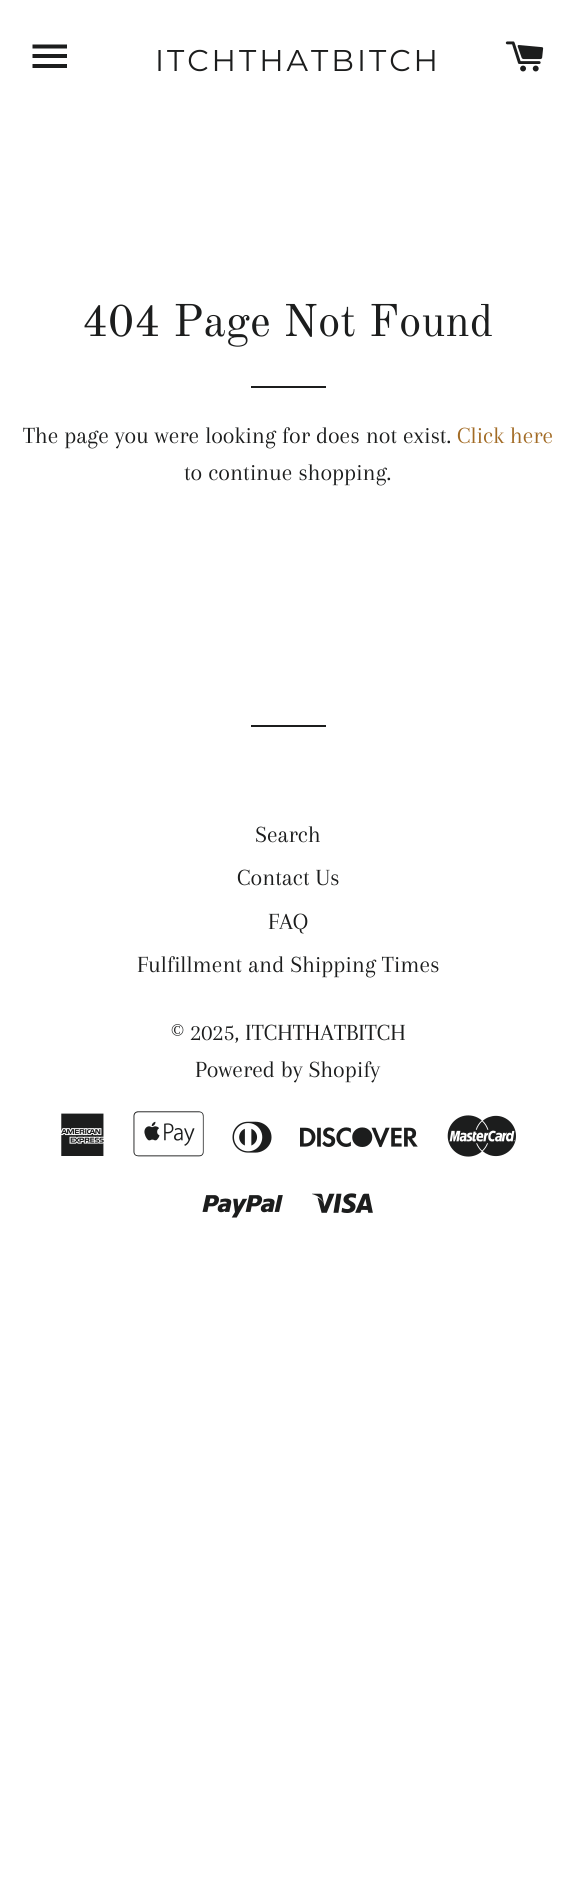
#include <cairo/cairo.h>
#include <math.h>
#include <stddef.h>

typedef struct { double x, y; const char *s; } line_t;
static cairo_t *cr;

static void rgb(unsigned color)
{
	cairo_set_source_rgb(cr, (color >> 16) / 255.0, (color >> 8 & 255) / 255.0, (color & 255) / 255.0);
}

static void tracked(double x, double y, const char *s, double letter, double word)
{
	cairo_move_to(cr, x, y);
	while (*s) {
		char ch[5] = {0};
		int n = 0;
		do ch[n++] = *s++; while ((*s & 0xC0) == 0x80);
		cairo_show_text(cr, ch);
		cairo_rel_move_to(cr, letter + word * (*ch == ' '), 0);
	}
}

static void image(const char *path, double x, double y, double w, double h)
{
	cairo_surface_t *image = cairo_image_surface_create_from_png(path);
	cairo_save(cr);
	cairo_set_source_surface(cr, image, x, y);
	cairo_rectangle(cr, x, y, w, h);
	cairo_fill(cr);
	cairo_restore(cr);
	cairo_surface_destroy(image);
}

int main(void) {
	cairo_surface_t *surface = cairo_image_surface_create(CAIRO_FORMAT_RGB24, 576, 1884);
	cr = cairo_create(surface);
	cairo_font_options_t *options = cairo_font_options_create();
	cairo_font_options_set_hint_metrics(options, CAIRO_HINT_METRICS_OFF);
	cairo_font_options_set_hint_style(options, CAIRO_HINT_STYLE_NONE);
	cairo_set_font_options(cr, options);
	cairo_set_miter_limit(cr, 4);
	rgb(0xffffff);
	cairo_paint(cr);
	rgb(0x1c1d1d);
	cairo_new_path(cr);
	cairo_move_to(cr, 32.5, 44.5);
	cairo_line_to(cr, 67, 44.5);
	cairo_line_to(cr, 67, 48.5);
	cairo_line_to(cr, 32.5, 48.5);
	cairo_close_path(cr);
	cairo_move_to(cr, 32.5, 54);
	cairo_line_to(cr, 67, 54);
	cairo_line_to(cr, 67, 58);
	cairo_line_to(cr, 32.5, 58);
	cairo_close_path(cr);
	cairo_move_to(cr, 32.5, 64);
	cairo_line_to(cr, 67, 64);
	cairo_line_to(cr, 67, 68);
	cairo_line_to(cr, 32.5, 68);
	cairo_close_path(cr);
	cairo_fill(cr);
	image("img/1.png", 505, 41, 39, 31);
	cairo_rectangle(cr, 251, 386, 75, 2);
	cairo_fill(cr);
	cairo_rectangle(cr, 251, 725, 75, 2);
	cairo_fill(cr);
	image("img/2.png", 61, 1113, 43, 43);
	image("img/3.png", 133, 1111, 71, 46);
	image("img/4.png", 232, 1121, 40, 32);
	image("img/5.png", 300, 1127, 118, 21);
	image("img/6.png", 447, 1115, 69, 42);
	image("img/7.png", 202, 1195, 81, 23);
	image("img/8.png", 312, 1193, 61, 20);
	cairo_select_font_face(cr, "Montserrat Thin", CAIRO_FONT_SLANT_NORMAL, CAIRO_FONT_WEIGHT_NORMAL);
	cairo_set_font_size(cr, 30);
	tracked(155, 71, "ITCHTHATBITCH", 3, 0);
	cairo_select_font_face(cr, "Old Standard TT", CAIRO_FONT_SLANT_NORMAL, CAIRO_FONT_WEIGHT_NORMAL);
	cairo_set_font_size(cr, 45);
	cairo_move_to(cr, 82, 336);
	cairo_show_text(cr, "404 Page Not Found");
	cairo_select_font_face(cr, "Arapey", CAIRO_FONT_SLANT_NORMAL, CAIRO_FONT_WEIGHT_NORMAL);
	cairo_set_font_size(cr, 24);
	cairo_move_to(cr, 23, 443);
	cairo_show_text(cr, "The page you were looking for does not exist.");
	rgb(0xa26b25);
	cairo_move_to(cr, 457, 443);
	cairo_show_text(cr, "Click here");
	rgb(0x1c1d1d);
	{
		static const line_t items[] = {
			{184, 480, "to continue shopping."},
			{255, 842, "Search"},
			{237, 885, "Contact Us"},
			{268, 929, "FAQ"},
			{137, 972, "Fulfillment and Shipping Times"},
			{171, 1040, "© 2025, ITCHTHATBITCH"},
			{195, 1077, "Powered by Shopify"},
		};
		for (size_t i = 0; i < sizeof items / sizeof *items; i++) {
			cairo_move_to(cr, items[i].x, items[i].y);
			cairo_show_text(cr, items[i].s);
		}
	}
	cairo_surface_write_to_png(surface, "page.png");
	cairo_font_options_destroy(options);
	cairo_destroy(cr);
	cairo_surface_destroy(surface);
	return 0;
}
